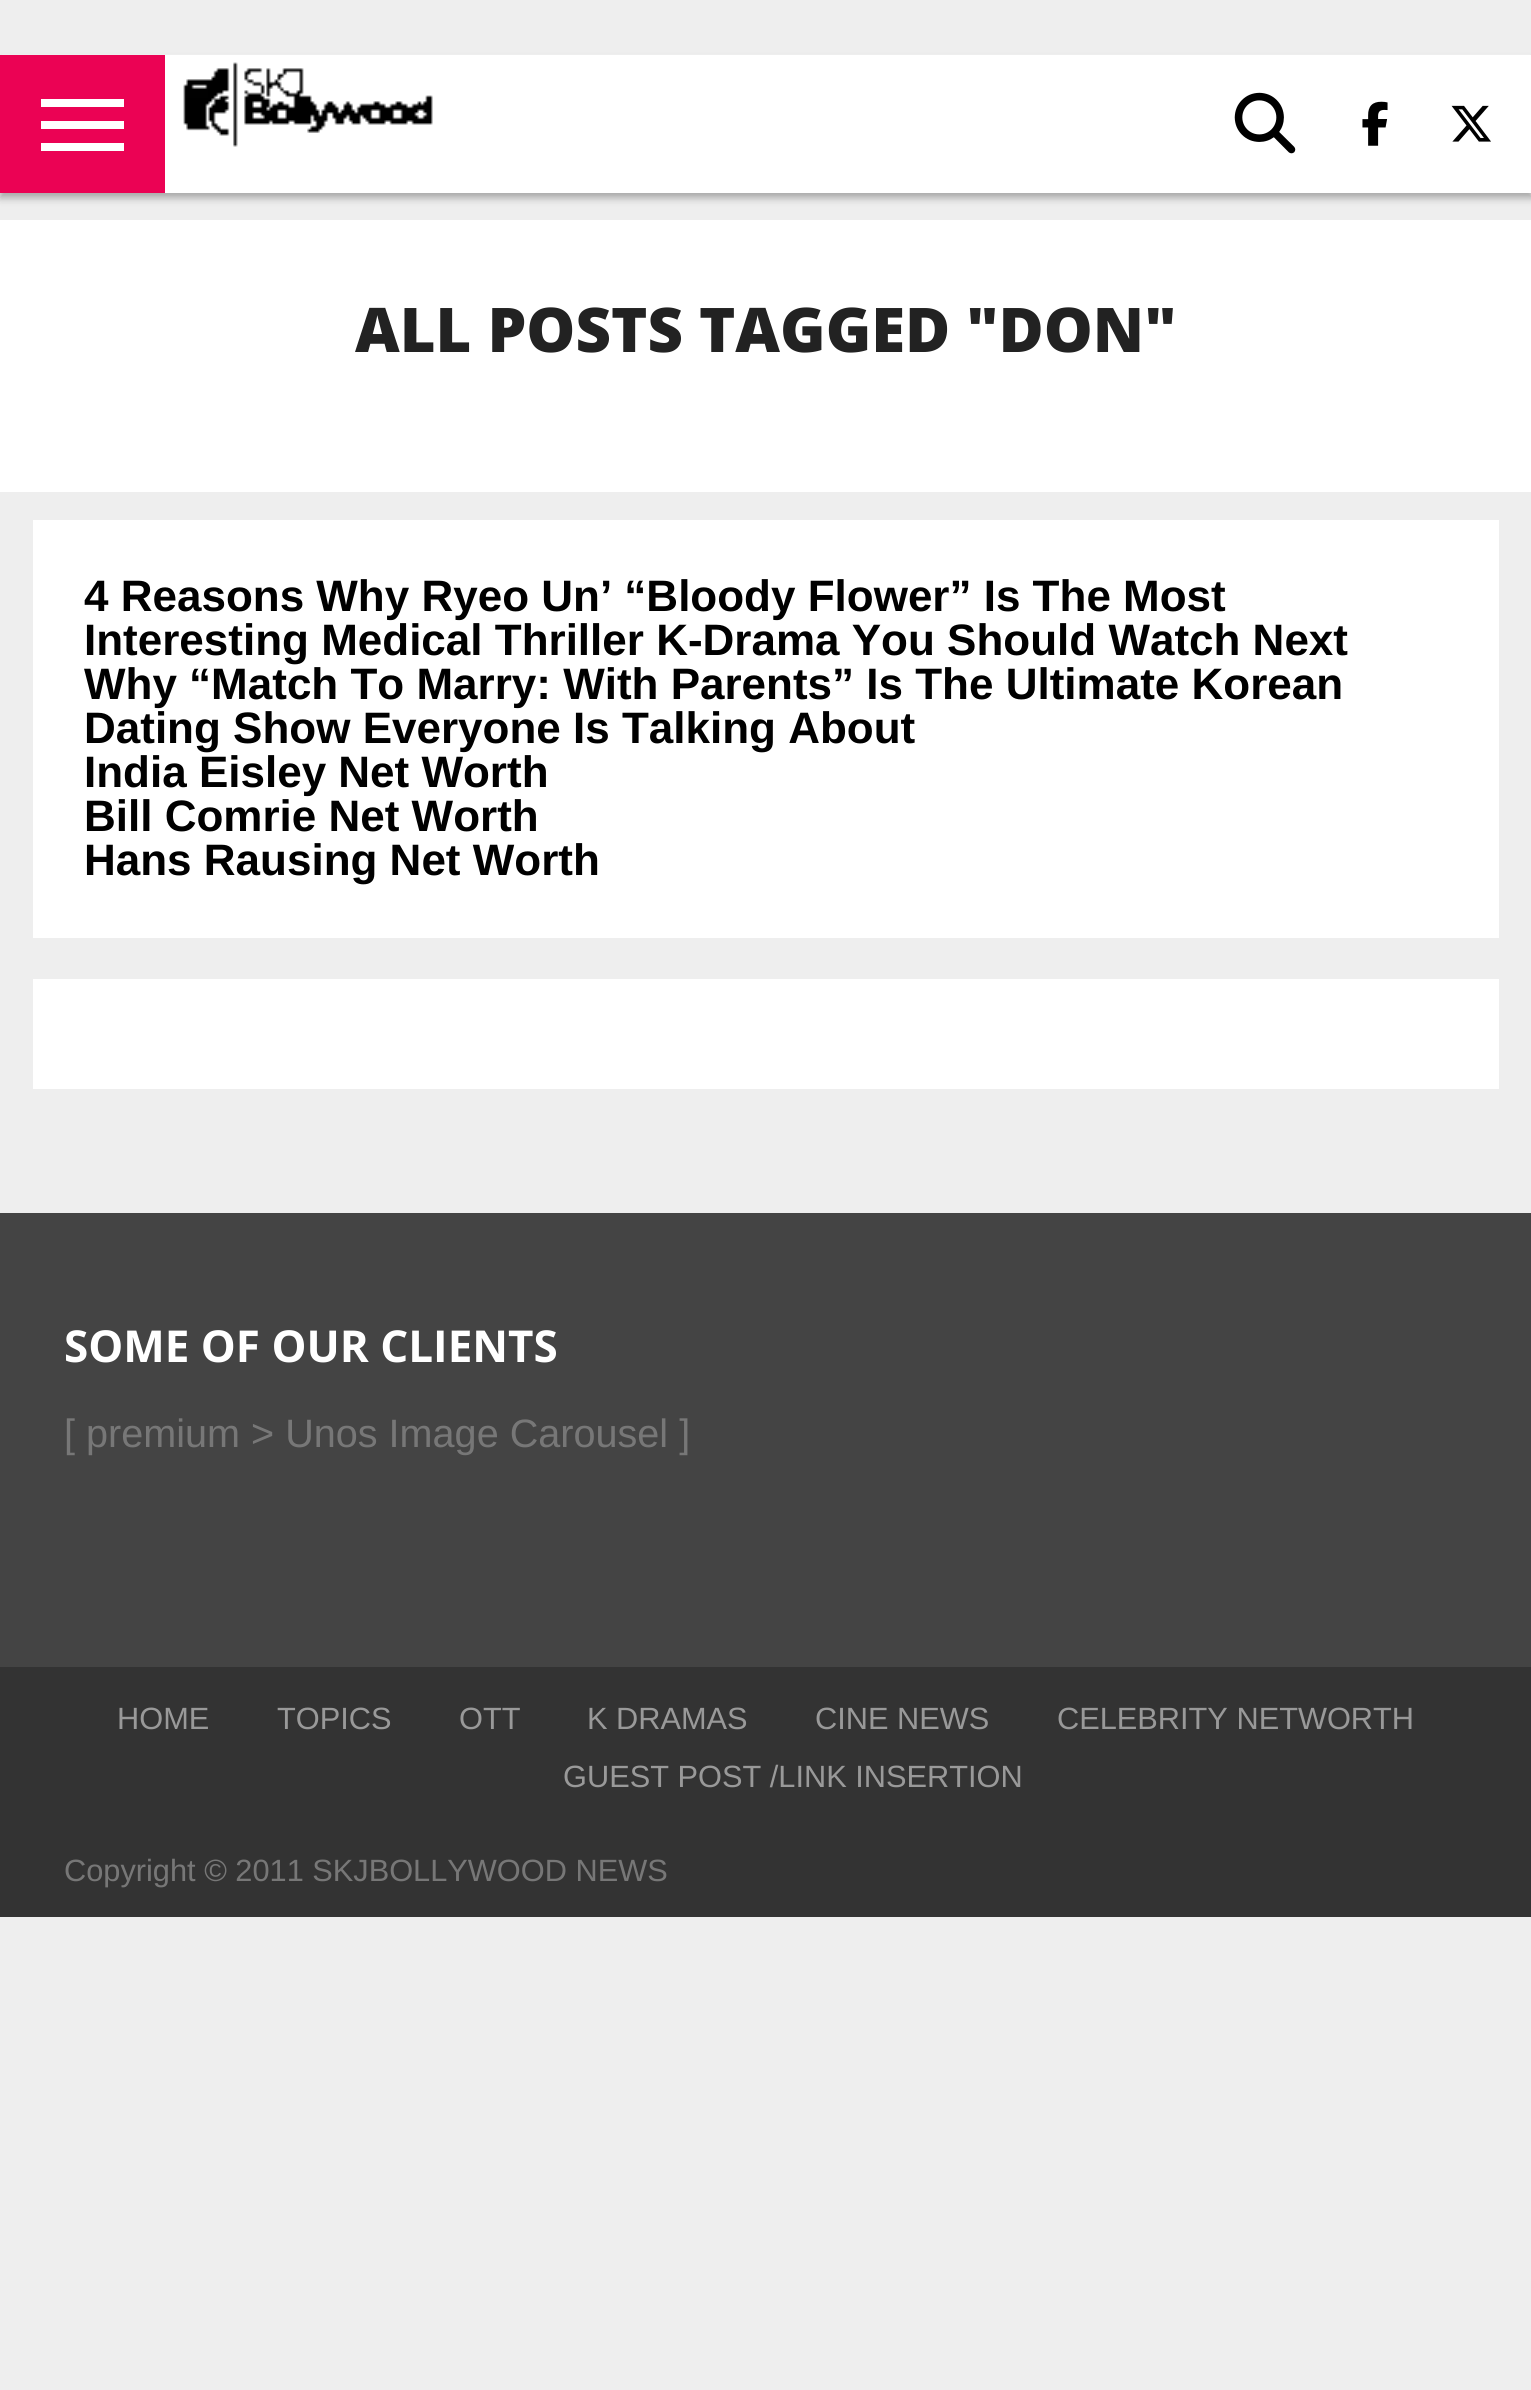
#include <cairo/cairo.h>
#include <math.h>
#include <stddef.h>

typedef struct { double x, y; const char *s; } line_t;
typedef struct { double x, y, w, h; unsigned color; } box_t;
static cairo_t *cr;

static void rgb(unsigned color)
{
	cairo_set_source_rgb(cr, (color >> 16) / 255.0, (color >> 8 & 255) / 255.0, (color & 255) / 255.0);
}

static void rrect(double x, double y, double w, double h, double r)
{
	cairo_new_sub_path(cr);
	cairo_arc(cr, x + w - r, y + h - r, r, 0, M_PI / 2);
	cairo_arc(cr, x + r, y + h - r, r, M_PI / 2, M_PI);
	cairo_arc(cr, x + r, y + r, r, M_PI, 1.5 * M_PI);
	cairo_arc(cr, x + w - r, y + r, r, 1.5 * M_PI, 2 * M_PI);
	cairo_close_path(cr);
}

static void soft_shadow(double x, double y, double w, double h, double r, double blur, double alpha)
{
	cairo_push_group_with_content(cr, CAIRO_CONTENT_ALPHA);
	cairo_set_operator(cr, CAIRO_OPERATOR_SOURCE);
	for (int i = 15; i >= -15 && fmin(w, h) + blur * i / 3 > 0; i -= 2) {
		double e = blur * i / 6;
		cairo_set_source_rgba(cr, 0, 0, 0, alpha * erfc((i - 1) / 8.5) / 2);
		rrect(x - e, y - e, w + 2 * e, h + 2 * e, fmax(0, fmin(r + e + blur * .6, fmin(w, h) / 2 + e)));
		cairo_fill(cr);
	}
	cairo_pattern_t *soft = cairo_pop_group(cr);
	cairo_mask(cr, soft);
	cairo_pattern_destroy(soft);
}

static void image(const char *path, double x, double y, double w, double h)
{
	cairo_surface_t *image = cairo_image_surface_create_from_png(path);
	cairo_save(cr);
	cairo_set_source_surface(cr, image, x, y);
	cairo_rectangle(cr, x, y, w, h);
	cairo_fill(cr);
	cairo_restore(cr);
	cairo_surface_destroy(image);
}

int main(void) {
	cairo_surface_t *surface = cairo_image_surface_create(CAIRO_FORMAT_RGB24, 1531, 2390);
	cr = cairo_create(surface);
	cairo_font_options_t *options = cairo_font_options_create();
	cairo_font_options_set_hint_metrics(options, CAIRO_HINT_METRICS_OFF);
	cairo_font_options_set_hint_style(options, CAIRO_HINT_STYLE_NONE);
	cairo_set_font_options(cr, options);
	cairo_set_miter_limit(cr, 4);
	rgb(0xeeeeee);
	cairo_paint(cr);
	rgb(0x000000);
	soft_shadow(0, 61, 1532, 137, 0, 4, 0.3);
	{
		static const box_t items[] = {
			{165, 55, 1366, 138, 0xffffff},
			{0, 55, 165, 138, 0xeb0254},
			{41, 99, 83, 8, 0xffffff},
			{41, 121, 83, 8, 0xffffff},
			{41, 143, 83, 8, 0xffffff},
		};
		for (size_t i = 0; i < sizeof items / sizeof *items; i++) {
			rgb(items[i].color);
			cairo_rectangle(cr, items[i].x, items[i].y, items[i].w, items[i].h);
			cairo_fill(cr);
		}
	}
	image("img/1.png", 183, 62, 250, 85);
	image("img/2.png", 1234, 92, 62, 62);
	image("img/3.png", 1362, 101, 26, 45);
	image("img/4.png", 1451, 105, 40, 37);
	{
		static const box_t items[] = {
			{2, 54, 1528, 1, 0xeeeeee},
			{0, 220, 1531, 272, 0xffffff},
			{33, 520, 1466, 418, 0xffffff},
			{33, 979, 1466, 110, 0xffffff},
			{0, 1213, 1531, 454, 0x444444},
			{0, 1667, 1531, 250, 0x333333},
		};
		for (size_t i = 0; i < sizeof items / sizeof *items; i++) {
			rgb(items[i].color);
			cairo_rectangle(cr, items[i].x, items[i].y, items[i].w, items[i].h);
			cairo_fill(cr);
		}
	}
	cairo_select_font_face(cr, "Open Sans ExtraBold", CAIRO_FONT_SLANT_NORMAL, CAIRO_FONT_WEIGHT_NORMAL);
	cairo_set_font_size(cr, 61.6);
	rgb(0x222222);
	cairo_move_to(cr, 355, 352);
	cairo_show_text(cr, "ALL POSTS TAGGED \"DON\"");
	cairo_select_font_face(cr, "Liberation Sans", CAIRO_FONT_SLANT_NORMAL, CAIRO_FONT_WEIGHT_BOLD);
	cairo_set_font_size(cr, 44);
	rgb(0x000000);
	{
		static const line_t items[] = {
			{84, 611, "4 Reasons Why Ryeo Un’ “Bloody Flower” Is The Most"},
			{84, 655, "Interesting Medical Thriller K-Drama You Should Watch Next"},
			{84, 699, "Why “Match To Marry: With Parents” Is The Ultimate Korean"},
			{84, 743, "Dating Show Everyone Is Talking About"},
			{84, 787, "India Eisley Net Worth"},
			{84, 831, "Bill Comrie Net Worth"},
			{84, 875, "Hans Rausing Net Worth"},
		};
		for (size_t i = 0; i < sizeof items / sizeof *items; i++) {
			cairo_move_to(cr, items[i].x, items[i].y);
			cairo_show_text(cr, items[i].s);
		}
	}
	cairo_select_font_face(cr, "Open Sans", CAIRO_FONT_SLANT_NORMAL, CAIRO_FONT_WEIGHT_BOLD);
	rgb(0xffffff);
	cairo_move_to(cr, 64, 1362);
	cairo_show_text(cr, "SOME OF OUR CLIENTS");
	cairo_select_font_face(cr, "Liberation Sans", CAIRO_FONT_SLANT_NORMAL, CAIRO_FONT_WEIGHT_NORMAL);
	cairo_set_font_size(cr, 39.6);
	rgb(0x777777);
	cairo_move_to(cr, 64, 1447);
	cairo_show_text(cr, "[ premium > Unos Image Carousel ]");
	cairo_set_font_size(cr, 30.75);
	rgb(0x999999);
	{
		static const line_t items[] = {
			{117, 1729, "HOME"},
			{277, 1729, "TOPICS"},
			{459, 1729, "OTT"},
			{587, 1729, "K DRAMAS"},
			{815, 1729, "CINE NEWS"},
			{1057, 1729, "CELEBRITY NETWORTH"},
			{563, 1787, "GUEST POST /LINK INSERTION"},
		};
		for (size_t i = 0; i < sizeof items / sizeof *items; i++) {
			cairo_move_to(cr, items[i].x, items[i].y);
			cairo_show_text(cr, items[i].s);
		}
	}
	rgb(0x777777);
	cairo_move_to(cr, 64, 1881);
	cairo_show_text(cr, "Copyright © 2011 SKJBOLLYWOOD NEWS");
	cairo_surface_write_to_png(surface, "page.png");
	cairo_font_options_destroy(options);
	cairo_destroy(cr);
	cairo_surface_destroy(surface);
	return 0;
}
